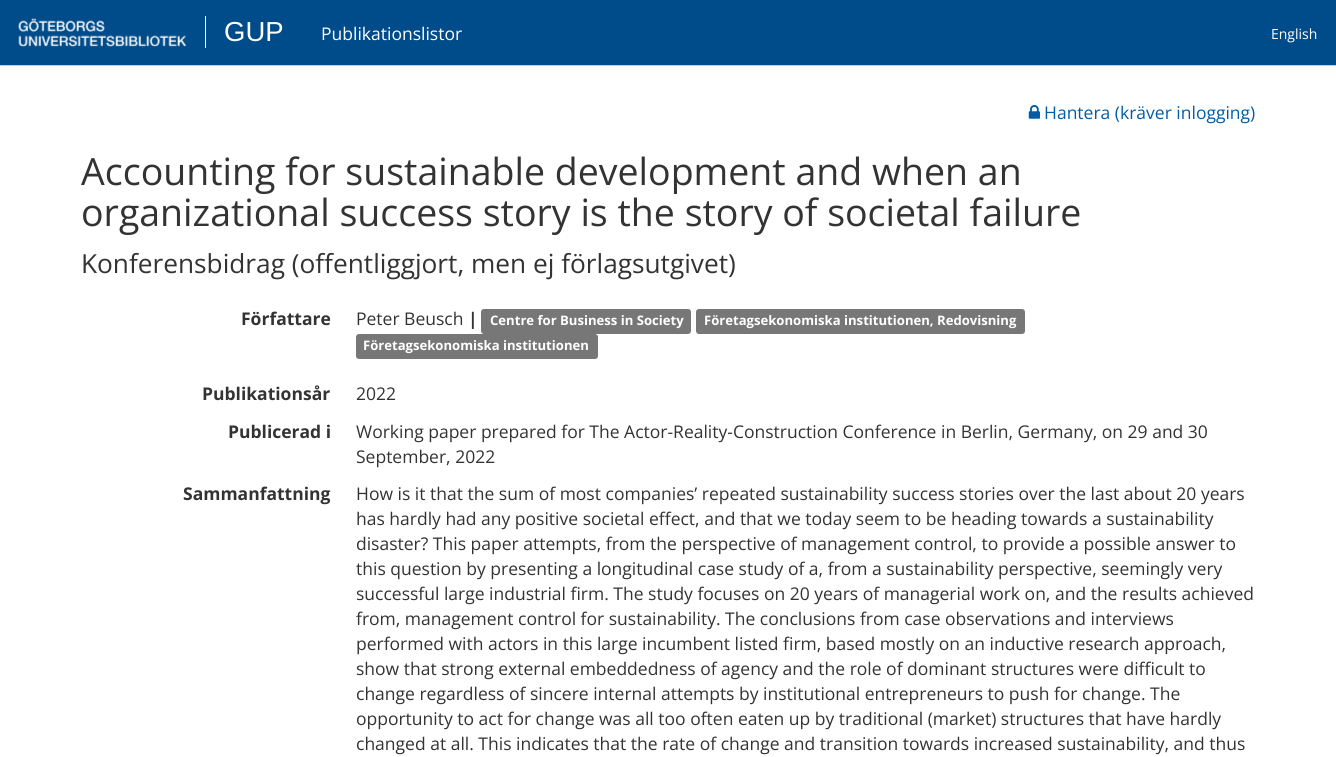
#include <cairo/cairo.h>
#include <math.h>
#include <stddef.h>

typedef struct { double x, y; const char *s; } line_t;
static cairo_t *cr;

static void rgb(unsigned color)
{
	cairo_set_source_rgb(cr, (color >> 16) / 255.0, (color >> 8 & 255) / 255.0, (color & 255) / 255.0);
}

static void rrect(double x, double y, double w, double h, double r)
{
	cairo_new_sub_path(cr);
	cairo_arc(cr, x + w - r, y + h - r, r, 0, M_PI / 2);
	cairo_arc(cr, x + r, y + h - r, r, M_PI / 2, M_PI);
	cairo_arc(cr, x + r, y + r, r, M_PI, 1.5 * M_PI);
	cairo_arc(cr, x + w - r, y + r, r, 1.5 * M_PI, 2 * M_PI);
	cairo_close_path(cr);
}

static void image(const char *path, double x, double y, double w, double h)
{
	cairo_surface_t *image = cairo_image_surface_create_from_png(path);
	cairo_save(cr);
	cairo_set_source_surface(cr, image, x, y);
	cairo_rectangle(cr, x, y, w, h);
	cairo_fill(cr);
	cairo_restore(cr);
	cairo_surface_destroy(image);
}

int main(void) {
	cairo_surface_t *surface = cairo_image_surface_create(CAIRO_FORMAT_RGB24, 1336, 757);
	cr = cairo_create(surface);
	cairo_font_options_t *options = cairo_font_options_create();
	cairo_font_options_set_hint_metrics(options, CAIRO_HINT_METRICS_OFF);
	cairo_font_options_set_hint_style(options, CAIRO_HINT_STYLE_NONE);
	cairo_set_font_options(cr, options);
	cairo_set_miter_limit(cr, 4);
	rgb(0xffffff);
	cairo_paint(cr);
	rgb(0x004b89);
	cairo_rectangle(cr, 0, 0, 1336, 65);
	cairo_fill(cr);
	rgb(0xcccccc);
	cairo_rectangle(cr, 0, 65, 1336, 1);
	cairo_fill(cr);
	image("img/1.png", 18, 18, 168, 29);
	rgb(0xffffff);
	cairo_rectangle(cr, 205, 16, 1, 32);
	cairo_fill(cr);
	image("img/2.png", 1028, 105, 12, 14);
	rgb(0x777777);
	rrect(481, 309, 210, 25, 3);
	cairo_fill(cr);
	rrect(696, 309, 329, 25, 3);
	cairo_fill(cr);
	rrect(356, 334, 242, 25, 3);
	cairo_fill(cr);
	cairo_select_font_face(cr, "Liberation Sans", CAIRO_FONT_SLANT_NORMAL, CAIRO_FONT_WEIGHT_NORMAL);
	cairo_set_font_size(cr, 27.5);
	rgb(0xffffff);
	cairo_move_to(cr, 224, 41);
	cairo_show_text(cr, "GUP");
	cairo_select_font_face(cr, "Open Sans", CAIRO_FONT_SLANT_NORMAL, CAIRO_FONT_WEIGHT_NORMAL);
	cairo_set_font_size(cr, 17.5);
	cairo_move_to(cr, 321, 40);
	cairo_show_text(cr, "Publikationslistor");
	cairo_set_font_size(cr, 14);
	cairo_move_to(cr, 1271, 39);
	cairo_show_text(cr, "English");
	cairo_set_font_size(cr, 17.5);
	rgb(0x025da6);
	cairo_move_to(cr, 1044, 119);
	cairo_show_text(cr, "Hantera (kräver inlogging)");
	cairo_set_font_size(cr, 37.5);
	rgb(0x333333);
	cairo_move_to(cr, 81, 185);
	cairo_show_text(cr, "Accounting for sustainable development and when an");
	cairo_move_to(cr, 81, 226);
	cairo_show_text(cr, "organizational success story is the story of societal failure");
	cairo_set_font_size(cr, 26.25);
	cairo_move_to(cr, 81, 273);
	cairo_show_text(cr, "Konferensbidrag (offentliggjort, men ej förlagsutgivet)");
	cairo_select_font_face(cr, "Open Sans", CAIRO_FONT_SLANT_NORMAL, CAIRO_FONT_WEIGHT_BOLD);
	cairo_set_font_size(cr, 17.5);
	cairo_move_to(cr, 241, 325);
	cairo_show_text(cr, "Författare");
	cairo_select_font_face(cr, "Open Sans", CAIRO_FONT_SLANT_NORMAL, CAIRO_FONT_WEIGHT_NORMAL);
	cairo_move_to(cr, 356, 325);
	cairo_show_text(cr, "Peter Beusch");
	cairo_select_font_face(cr, "Open Sans", CAIRO_FONT_SLANT_NORMAL, CAIRO_FONT_WEIGHT_BOLD);
	cairo_move_to(cr, 468, 325);
	cairo_show_text(cr, "|");
	cairo_set_font_size(cr, 13.1);
	rgb(0xffffff);
	{
		static const line_t items[] = {
			{490, 325, "Centre for Business in Society"},
			{704, 325, "Företagsekonomiska institutionen, Redovisning"},
			{363, 350, "Företagsekonomiska institutionen"},
		};
		for (size_t i = 0; i < sizeof items / sizeof *items; i++) {
			cairo_move_to(cr, items[i].x, items[i].y);
			cairo_show_text(cr, items[i].s);
		}
	}
	cairo_set_font_size(cr, 17.5);
	rgb(0x333333);
	cairo_move_to(cr, 202, 400);
	cairo_show_text(cr, "Publikationsår");
	cairo_select_font_face(cr, "Open Sans", CAIRO_FONT_SLANT_NORMAL, CAIRO_FONT_WEIGHT_NORMAL);
	cairo_move_to(cr, 356, 400);
	cairo_show_text(cr, "2022");
	cairo_select_font_face(cr, "Open Sans", CAIRO_FONT_SLANT_NORMAL, CAIRO_FONT_WEIGHT_BOLD);
	cairo_move_to(cr, 228, 438);
	cairo_show_text(cr, "Publicerad i");
	cairo_select_font_face(cr, "Open Sans", CAIRO_FONT_SLANT_NORMAL, CAIRO_FONT_WEIGHT_NORMAL);
	cairo_move_to(cr, 356, 438);
	cairo_show_text(cr, "Working paper prepared for The Actor-Reality-Construction Conference in Berlin, Germany, on 29 and 30");
	cairo_move_to(cr, 356, 463);
	cairo_show_text(cr, "September, 2022");
	cairo_select_font_face(cr, "Open Sans", CAIRO_FONT_SLANT_NORMAL, CAIRO_FONT_WEIGHT_BOLD);
	cairo_move_to(cr, 183, 500);
	cairo_show_text(cr, "Sammanfattning");
	cairo_select_font_face(cr, "Open Sans", CAIRO_FONT_SLANT_NORMAL, CAIRO_FONT_WEIGHT_NORMAL);
	{
		static const line_t items[] = {
			{356, 500, "How is it that the sum of most companies’ repeated sustainability success stories over the last about 20 years"},
			{356, 525, "has hardly had any positive societal effect, and that we today seem to be heading towards a sustainability"},
			{356, 550, "disaster? This paper attempts, from the perspective of management control, to provide a possible answer to"},
			{356, 575, "this question by presenting a longitudinal case study of a, from a sustainability perspective, seemingly very"},
			{356, 600, "successful large industrial firm. The study focuses on 20 years of managerial work on, and the results achieved"},
			{356, 625, "from, management control for sustainability. The conclusions from case observations and interviews"},
			{356, 650, "performed with actors in this large incumbent listed firm, based mostly on an inductive research approach,"},
			{356, 675, "show that strong external embeddedness of agency and the role of dominant structures were difficult to"},
			{356, 700, "change regardless of sincere internal attempts by institutional entrepreneurs to push for change. The"},
			{356, 725, "opportunity to act for change was all too often eaten up by traditional (market) structures that have hardly"},
			{356, 750, "changed at all. This indicates that the rate of change and transition towards increased sustainability, and thus"},
		};
		for (size_t i = 0; i < sizeof items / sizeof *items; i++) {
			cairo_move_to(cr, items[i].x, items[i].y);
			cairo_show_text(cr, items[i].s);
		}
	}
	cairo_surface_write_to_png(surface, "page.png");
	cairo_font_options_destroy(options);
	cairo_destroy(cr);
	cairo_surface_destroy(surface);
	return 0;
}
